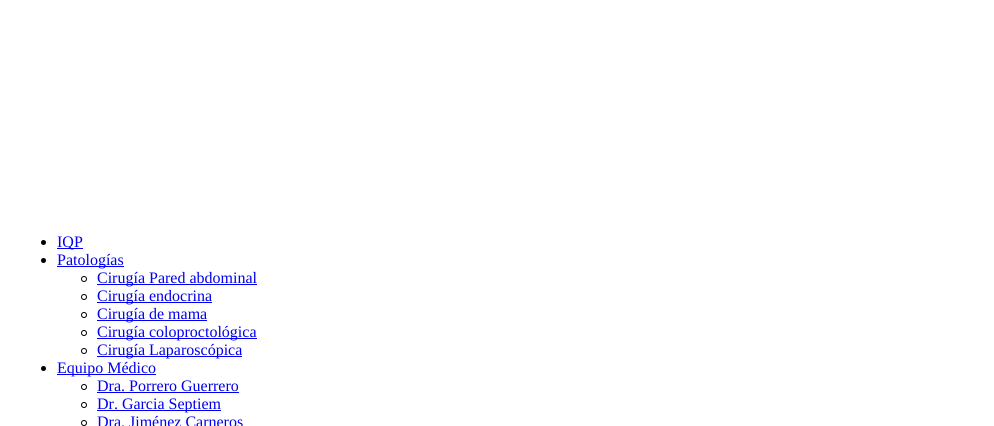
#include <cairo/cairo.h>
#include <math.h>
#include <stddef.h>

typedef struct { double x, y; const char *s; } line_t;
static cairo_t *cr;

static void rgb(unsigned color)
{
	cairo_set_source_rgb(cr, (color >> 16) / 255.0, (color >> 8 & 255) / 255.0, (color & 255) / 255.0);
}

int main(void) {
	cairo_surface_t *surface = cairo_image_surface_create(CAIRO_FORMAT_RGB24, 994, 426);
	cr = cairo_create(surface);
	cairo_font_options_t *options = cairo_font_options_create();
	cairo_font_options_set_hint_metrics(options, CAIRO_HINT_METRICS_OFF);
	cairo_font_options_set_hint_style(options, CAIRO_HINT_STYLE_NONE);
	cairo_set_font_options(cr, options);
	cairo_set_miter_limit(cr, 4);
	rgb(0xffffff);
	cairo_paint(cr);
	rgb(0x000000);
	cairo_arc(cr, 43.5, 242.5, 2.5, 0, 2 * M_PI);
	cairo_fill(cr);
	rgb(0x0000ee);
	cairo_rectangle(cr, 57, 248, 26, 1);
	cairo_fill(cr);
	rgb(0x000000);
	cairo_arc(cr, 43.5, 260.5, 2.5, 0, 2 * M_PI);
	cairo_fill(cr);
	rgb(0x0000ee);
	cairo_rectangle(cr, 57, 266, 67, 1);
	cairo_fill(cr);
	cairo_arc(cr, 84, 279, 2.5, 0, 2 * M_PI);
	rgb(0x000000);
	cairo_set_line_width(cr, 1);
	cairo_stroke(cr);
	rgb(0x0000ee);
	cairo_rectangle(cr, 97, 284, 160, 1);
	cairo_fill(cr);
	cairo_arc(cr, 84, 297, 2.5, 0, 2 * M_PI);
	rgb(0x000000);
	cairo_stroke(cr);
	rgb(0x0000ee);
	cairo_rectangle(cr, 97, 302, 115, 1);
	cairo_fill(cr);
	cairo_arc(cr, 84, 315, 2.5, 0, 2 * M_PI);
	rgb(0x000000);
	cairo_stroke(cr);
	rgb(0x0000ee);
	cairo_rectangle(cr, 97, 320, 110, 1);
	cairo_fill(cr);
	cairo_arc(cr, 84, 333, 2.5, 0, 2 * M_PI);
	rgb(0x000000);
	cairo_stroke(cr);
	rgb(0x0000ee);
	cairo_rectangle(cr, 97, 338, 160, 1);
	cairo_fill(cr);
	cairo_arc(cr, 84, 351, 2.5, 0, 2 * M_PI);
	rgb(0x000000);
	cairo_stroke(cr);
	rgb(0x0000ee);
	cairo_rectangle(cr, 97, 356, 145, 1);
	cairo_fill(cr);
	rgb(0x000000);
	cairo_arc(cr, 43.5, 368.5, 2.5, 0, 2 * M_PI);
	cairo_fill(cr);
	rgb(0x0000ee);
	cairo_rectangle(cr, 57, 374, 99, 1);
	cairo_fill(cr);
	cairo_arc(cr, 84, 387, 2.5, 0, 2 * M_PI);
	rgb(0x000000);
	cairo_stroke(cr);
	rgb(0x0000ee);
	cairo_rectangle(cr, 97, 392, 142, 1);
	cairo_fill(cr);
	cairo_arc(cr, 84, 405, 2.5, 0, 2 * M_PI);
	rgb(0x000000);
	cairo_stroke(cr);
	rgb(0x0000ee);
	cairo_rectangle(cr, 97, 410, 124, 1);
	cairo_fill(cr);
	cairo_arc(cr, 84, 423, 2.5, 0, 2 * M_PI);
	rgb(0x000000);
	cairo_stroke(cr);
	cairo_select_font_face(cr, "Liberation Serif", CAIRO_FONT_SLANT_NORMAL, CAIRO_FONT_WEIGHT_NORMAL);
	cairo_set_font_size(cr, 16);
	rgb(0x0000ee);
	{
		static const line_t items[] = {
			{57, 247, "IQP"},
			{57, 265, "Patologías"},
			{97, 283, "Cirugía Pared abdominal"},
			{97, 301, "Cirugía endocrina"},
			{97, 319, "Cirugía de mama"},
			{97, 337, "Cirugía coloproctológica"},
			{97, 355, "Cirugía Laparoscópica"},
			{57, 373, "Equipo Médico"},
			{97, 391, "Dra. Porrero Guerrero"},
			{97, 409, "Dr. Garcia Septiem"},
			{97, 427, "Dra. Jiménez Carneros"},
		};
		for (size_t i = 0; i < sizeof items / sizeof *items; i++) {
			cairo_move_to(cr, items[i].x, items[i].y);
			cairo_show_text(cr, items[i].s);
		}
	}
	cairo_surface_write_to_png(surface, "page.png");
	cairo_font_options_destroy(options);
	cairo_destroy(cr);
	cairo_surface_destroy(surface);
	return 0;
}
